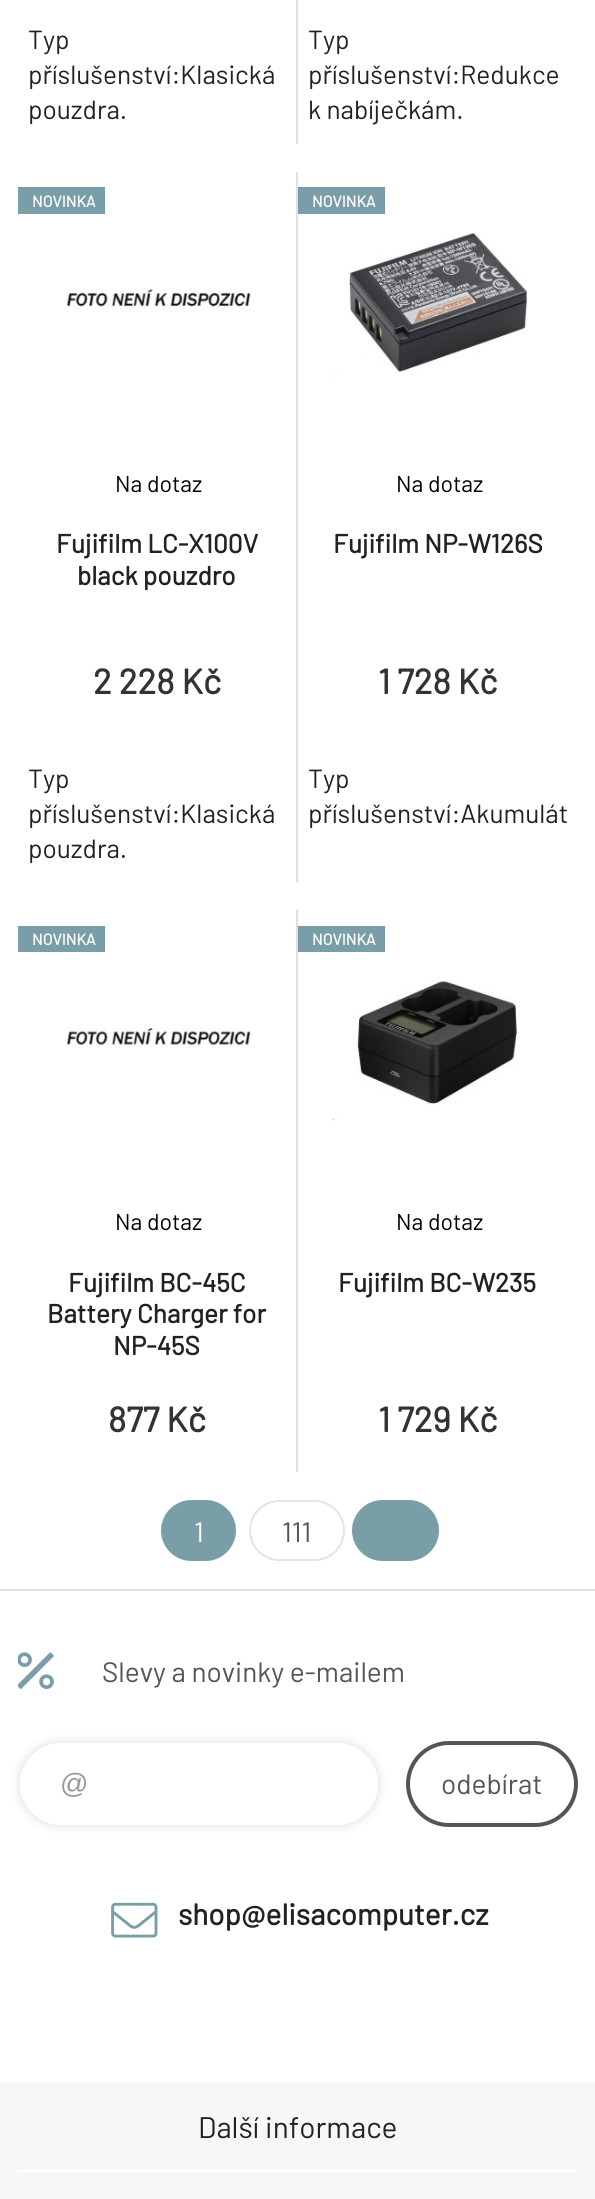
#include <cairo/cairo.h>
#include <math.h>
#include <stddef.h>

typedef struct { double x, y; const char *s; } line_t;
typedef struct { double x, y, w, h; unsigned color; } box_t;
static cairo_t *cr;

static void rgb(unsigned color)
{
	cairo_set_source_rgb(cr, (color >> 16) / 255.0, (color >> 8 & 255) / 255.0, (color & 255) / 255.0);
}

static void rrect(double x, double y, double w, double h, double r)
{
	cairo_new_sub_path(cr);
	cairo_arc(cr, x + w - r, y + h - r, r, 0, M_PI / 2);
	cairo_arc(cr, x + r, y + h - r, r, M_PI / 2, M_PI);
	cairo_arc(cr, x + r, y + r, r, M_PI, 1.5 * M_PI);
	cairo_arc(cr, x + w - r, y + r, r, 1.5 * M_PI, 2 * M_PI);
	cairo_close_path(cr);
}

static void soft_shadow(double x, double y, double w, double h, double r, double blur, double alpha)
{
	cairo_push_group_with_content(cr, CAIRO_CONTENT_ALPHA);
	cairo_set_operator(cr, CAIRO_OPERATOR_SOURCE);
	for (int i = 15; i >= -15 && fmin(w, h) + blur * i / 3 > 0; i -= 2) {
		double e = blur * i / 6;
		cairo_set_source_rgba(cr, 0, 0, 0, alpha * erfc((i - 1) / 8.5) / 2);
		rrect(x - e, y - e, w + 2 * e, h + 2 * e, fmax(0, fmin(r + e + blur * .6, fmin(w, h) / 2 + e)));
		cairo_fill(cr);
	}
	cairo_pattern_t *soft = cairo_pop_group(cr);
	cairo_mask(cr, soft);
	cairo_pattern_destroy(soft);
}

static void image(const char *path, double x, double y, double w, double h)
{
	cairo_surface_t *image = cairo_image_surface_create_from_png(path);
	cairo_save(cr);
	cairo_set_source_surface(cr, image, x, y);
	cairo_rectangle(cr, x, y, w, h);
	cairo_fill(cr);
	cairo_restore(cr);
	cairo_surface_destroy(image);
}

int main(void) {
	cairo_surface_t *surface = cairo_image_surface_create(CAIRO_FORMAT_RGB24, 595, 2199);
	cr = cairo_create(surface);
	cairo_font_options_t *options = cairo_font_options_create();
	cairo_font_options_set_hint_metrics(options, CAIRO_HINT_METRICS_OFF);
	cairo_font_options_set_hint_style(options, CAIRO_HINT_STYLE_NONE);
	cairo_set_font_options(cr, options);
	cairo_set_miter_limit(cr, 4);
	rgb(0xffffff);
	cairo_paint(cr);
	{
		static const box_t items[] = {
			{296, 0, 2, 144, 0xe0e0e0},
			{296, 172, 2, 710, 0xe0e0e0},
			{18, 187, 87, 27, 0x799ea7},
		};
		for (size_t i = 0; i < sizeof items / sizeof *items; i++) {
			rgb(items[i].color);
			cairo_rectangle(cr, items[i].x, items[i].y, items[i].w, items[i].h);
			cairo_fill(cr);
		}
	}
	image("img/1.png", 66, 289, 185, 20);
	cairo_rectangle(cr, 298, 187, 87, 27);
	cairo_fill(cr);
	image("img/2.png", 332, 232, 195, 146);
	rgb(0xe0e0e0);
	cairo_rectangle(cr, 296, 910, 2, 562);
	cairo_fill(cr);
	rgb(0x799ea7);
	cairo_rectangle(cr, 18, 926, 87, 26);
	cairo_fill(cr);
	image("img/3.png", 66, 1028, 185, 20);
	cairo_rectangle(cr, 298, 926, 87, 26);
	cairo_fill(cr);
	image("img/4.png", 332, 981, 186, 140);
	rrect(162, 1501, 73, 59, 29.5);
	cairo_fill_preserve(cr);
	cairo_stroke(cr);
	rrect(250, 1501, 94, 59, 29.5);
	rgb(0xe4e4e4);
	cairo_stroke(cr);
	rgb(0x799ea7);
	rrect(353, 1501, 85, 59, 29.5);
	cairo_fill_preserve(cr);
	cairo_stroke(cr);
	rgb(0xe0e0e0);
	cairo_rectangle(cr, 0, 1589, 595, 2);
	cairo_fill(cr);
	image("img/5.png", 18, 1652, 36, 37);
	rgb(0x000000);
	soft_shadow(18, 1741, 362, 86, 43, 4.5, 0.1);
	rgb(0xffffff);
	rrect(19, 1742, 360, 84, 42);
	cairo_fill_preserve(cr);
	rgb(0xf0f0f0);
	cairo_stroke(cr);
	rrect(408, 1743, 168, 82, 41);
	rgb(0x555555);
	cairo_set_line_width(cr, 4);
	cairo_stroke(cr);
	image("img/6.png", 111, 1902, 47, 36);
	rgb(0xf7f7f7);
	cairo_rectangle(cr, 0, 2083, 595, 116);
	cairo_fill(cr);
	rgb(0xffffff);
	cairo_rectangle(cr, 18, 2170, 560, 2);
	cairo_fill(cr);
	cairo_select_font_face(cr, "Barlow", CAIRO_FONT_SLANT_NORMAL, CAIRO_FONT_WEIGHT_NORMAL);
	cairo_set_font_size(cr, 26.25);
	rgb(0x222222);
	{
		static const line_t items[] = {
			{28, 49, "Typ"},
			{28, 84, "příslušenství:Klasická"},
			{28, 119, "pouzdra."},
			{308, 49, "Typ"},
			{308, 84, "příslušenství:Redukce"},
			{308, 119, "k nabíječkám."},
		};
		for (size_t i = 0; i < sizeof items / sizeof *items; i++) {
			cairo_move_to(cr, items[i].x, items[i].y);
			cairo_show_text(cr, items[i].s);
		}
	}
	cairo_select_font_face(cr, "Barlow", CAIRO_FONT_SLANT_NORMAL, CAIRO_FONT_WEIGHT_BOLD);
	cairo_set_font_size(cr, 15.75);
	rgb(0xffffff);
	cairo_move_to(cr, 32, 207);
	cairo_show_text(cr, "NOVINKA");
	cairo_select_font_face(cr, "Barlow", CAIRO_FONT_SLANT_NORMAL, CAIRO_FONT_WEIGHT_NORMAL);
	cairo_set_font_size(cr, 23);
	rgb(0x000000);
	cairo_move_to(cr, 115, 492);
	cairo_show_text(cr, "Na dotaz");
	cairo_select_font_face(cr, "Barlow", CAIRO_FONT_SLANT_NORMAL, CAIRO_FONT_WEIGHT_BOLD);
	cairo_set_font_size(cr, 35);
	rgb(0x333333);
	cairo_move_to(cr, 93, 694);
	cairo_show_text(cr, "2 228 Kč");
	cairo_set_font_size(cr, 26.25);
	rgb(0x222222);
	cairo_move_to(cr, 56, 553);
	cairo_show_text(cr, "Fujifilm LC-X100V");
	cairo_move_to(cr, 77, 585);
	cairo_show_text(cr, "black pouzdro");
	cairo_select_font_face(cr, "Barlow", CAIRO_FONT_SLANT_NORMAL, CAIRO_FONT_WEIGHT_NORMAL);
	{
		static const line_t items[] = {
			{28, 788, "Typ"},
			{28, 823, "příslušenství:Klasická"},
			{28, 858, "pouzdra."},
		};
		for (size_t i = 0; i < sizeof items / sizeof *items; i++) {
			cairo_move_to(cr, items[i].x, items[i].y);
			cairo_show_text(cr, items[i].s);
		}
	}
	cairo_select_font_face(cr, "Barlow", CAIRO_FONT_SLANT_NORMAL, CAIRO_FONT_WEIGHT_BOLD);
	cairo_set_font_size(cr, 15.75);
	rgb(0xffffff);
	cairo_move_to(cr, 312, 207);
	cairo_show_text(cr, "NOVINKA");
	cairo_select_font_face(cr, "Barlow", CAIRO_FONT_SLANT_NORMAL, CAIRO_FONT_WEIGHT_NORMAL);
	cairo_set_font_size(cr, 23);
	rgb(0x000000);
	cairo_move_to(cr, 396, 492);
	cairo_show_text(cr, "Na dotaz");
	cairo_select_font_face(cr, "Barlow", CAIRO_FONT_SLANT_NORMAL, CAIRO_FONT_WEIGHT_BOLD);
	cairo_set_font_size(cr, 35);
	rgb(0x333333);
	cairo_move_to(cr, 378, 694);
	cairo_show_text(cr, "1 728 Kč");
	cairo_set_font_size(cr, 26.25);
	rgb(0x222222);
	cairo_move_to(cr, 333, 553);
	cairo_show_text(cr, "Fujifilm NP-W126S");
	cairo_select_font_face(cr, "Barlow", CAIRO_FONT_SLANT_NORMAL, CAIRO_FONT_WEIGHT_NORMAL);
	cairo_move_to(cr, 308, 788);
	cairo_show_text(cr, "Typ");
	cairo_move_to(cr, 308, 823);
	cairo_show_text(cr, "příslušenství:Akumulát");
	cairo_select_font_face(cr, "Barlow", CAIRO_FONT_SLANT_NORMAL, CAIRO_FONT_WEIGHT_BOLD);
	cairo_set_font_size(cr, 15.75);
	rgb(0xffffff);
	cairo_move_to(cr, 32, 945);
	cairo_show_text(cr, "NOVINKA");
	cairo_select_font_face(cr, "Barlow", CAIRO_FONT_SLANT_NORMAL, CAIRO_FONT_WEIGHT_NORMAL);
	cairo_set_font_size(cr, 23);
	rgb(0x000000);
	cairo_move_to(cr, 115, 1230);
	cairo_show_text(cr, "Na dotaz");
	cairo_select_font_face(cr, "Barlow", CAIRO_FONT_SLANT_NORMAL, CAIRO_FONT_WEIGHT_BOLD);
	cairo_set_font_size(cr, 35);
	rgb(0x333333);
	cairo_move_to(cr, 108, 1432);
	cairo_show_text(cr, "877 Kč");
	cairo_set_font_size(cr, 26.25);
	rgb(0x222222);
	{
		static const line_t items[] = {
			{68, 1292, "Fujifilm BC-45C"},
			{47, 1323, "Battery Charger for"},
			{113, 1355, "NP-45S"},
		};
		for (size_t i = 0; i < sizeof items / sizeof *items; i++) {
			cairo_move_to(cr, items[i].x, items[i].y);
			cairo_show_text(cr, items[i].s);
		}
	}
	cairo_set_font_size(cr, 15.75);
	rgb(0xffffff);
	cairo_move_to(cr, 312, 945);
	cairo_show_text(cr, "NOVINKA");
	cairo_select_font_face(cr, "Barlow", CAIRO_FONT_SLANT_NORMAL, CAIRO_FONT_WEIGHT_NORMAL);
	cairo_set_font_size(cr, 23);
	rgb(0x000000);
	cairo_move_to(cr, 396, 1230);
	cairo_show_text(cr, "Na dotaz");
	cairo_select_font_face(cr, "Barlow", CAIRO_FONT_SLANT_NORMAL, CAIRO_FONT_WEIGHT_BOLD);
	cairo_set_font_size(cr, 35);
	rgb(0x333333);
	cairo_move_to(cr, 378, 1432);
	cairo_show_text(cr, "1 729 Kč");
	cairo_set_font_size(cr, 26.25);
	rgb(0x222222);
	cairo_move_to(cr, 338, 1292);
	cairo_show_text(cr, "Fujifilm BC-W235");
	cairo_select_font_face(cr, "Barlow", CAIRO_FONT_SLANT_NORMAL, CAIRO_FONT_WEIGHT_NORMAL);
	cairo_set_font_size(cr, 28);
	rgb(0xffffff);
	cairo_move_to(cr, 194, 1542);
	cairo_show_text(cr, "1");
	rgb(0x555555);
	cairo_move_to(cr, 282, 1542);
	cairo_show_text(cr, "111");
	cairo_move_to(cr, 102, 1682);
	cairo_show_text(cr, "Slevy a novinky e-mailem");
	cairo_select_font_face(cr, "Liberation Sans", CAIRO_FONT_SLANT_NORMAL, CAIRO_FONT_WEIGHT_NORMAL);
	rgb(0x999999);
	cairo_move_to(cr, 60, 1793);
	cairo_show_text(cr, "@");
	cairo_select_font_face(cr, "Barlow", CAIRO_FONT_SLANT_NORMAL, CAIRO_FONT_WEIGHT_NORMAL);
	rgb(0x555555);
	cairo_move_to(cr, 441, 1794);
	cairo_show_text(cr, "odebírat");
	cairo_select_font_face(cr, "Barlow", CAIRO_FONT_SLANT_NORMAL, CAIRO_FONT_WEIGHT_BOLD);
	cairo_set_font_size(cr, 29.75);
	rgb(0x222222);
	cairo_move_to(cr, 178, 1925);
	cairo_show_text(cr, "shop@elisacomputer.cz");
	cairo_select_font_face(cr, "Barlow", CAIRO_FONT_SLANT_NORMAL, CAIRO_FONT_WEIGHT_NORMAL);
	cairo_move_to(cr, 198, 2138);
	cairo_show_text(cr, "Další informace");
	cairo_surface_write_to_png(surface, "page.png");
	cairo_font_options_destroy(options);
	cairo_destroy(cr);
	cairo_surface_destroy(surface);
	return 0;
}
